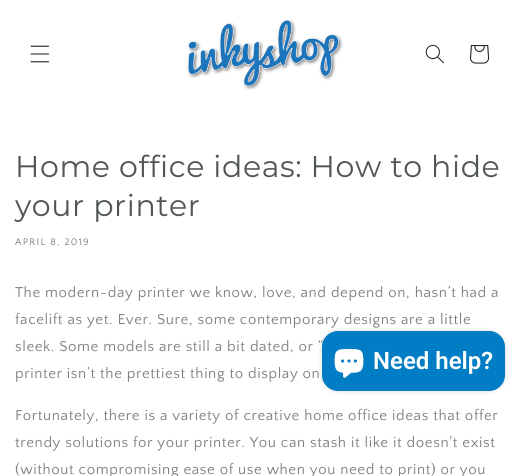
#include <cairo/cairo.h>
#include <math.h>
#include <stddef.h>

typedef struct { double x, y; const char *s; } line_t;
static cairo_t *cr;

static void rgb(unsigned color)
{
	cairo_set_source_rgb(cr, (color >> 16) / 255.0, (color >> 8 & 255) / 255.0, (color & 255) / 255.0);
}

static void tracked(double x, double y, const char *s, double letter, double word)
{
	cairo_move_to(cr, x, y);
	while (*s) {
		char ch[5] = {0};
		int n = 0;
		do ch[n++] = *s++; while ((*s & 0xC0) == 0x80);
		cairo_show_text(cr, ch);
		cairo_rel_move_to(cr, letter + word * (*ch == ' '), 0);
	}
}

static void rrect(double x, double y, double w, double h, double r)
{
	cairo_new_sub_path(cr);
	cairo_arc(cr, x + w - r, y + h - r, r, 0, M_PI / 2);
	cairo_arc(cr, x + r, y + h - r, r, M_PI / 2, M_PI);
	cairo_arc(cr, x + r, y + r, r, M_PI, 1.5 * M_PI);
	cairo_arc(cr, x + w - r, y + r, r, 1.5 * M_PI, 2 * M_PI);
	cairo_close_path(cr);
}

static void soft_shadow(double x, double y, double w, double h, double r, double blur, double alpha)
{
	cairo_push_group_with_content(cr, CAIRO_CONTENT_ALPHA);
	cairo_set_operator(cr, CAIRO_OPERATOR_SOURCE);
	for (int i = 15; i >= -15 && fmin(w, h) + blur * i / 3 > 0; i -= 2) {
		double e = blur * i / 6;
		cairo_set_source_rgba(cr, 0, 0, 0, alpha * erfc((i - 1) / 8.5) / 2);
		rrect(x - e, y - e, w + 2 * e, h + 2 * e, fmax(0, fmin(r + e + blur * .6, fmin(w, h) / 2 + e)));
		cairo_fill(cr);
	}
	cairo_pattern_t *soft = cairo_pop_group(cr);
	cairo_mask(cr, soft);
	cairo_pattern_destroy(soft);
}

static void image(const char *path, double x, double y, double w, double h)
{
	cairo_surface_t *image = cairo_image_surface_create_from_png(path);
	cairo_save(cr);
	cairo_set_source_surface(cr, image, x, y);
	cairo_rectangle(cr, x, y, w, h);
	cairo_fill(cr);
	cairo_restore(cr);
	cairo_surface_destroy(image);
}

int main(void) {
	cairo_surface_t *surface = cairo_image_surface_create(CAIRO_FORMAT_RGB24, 527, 476);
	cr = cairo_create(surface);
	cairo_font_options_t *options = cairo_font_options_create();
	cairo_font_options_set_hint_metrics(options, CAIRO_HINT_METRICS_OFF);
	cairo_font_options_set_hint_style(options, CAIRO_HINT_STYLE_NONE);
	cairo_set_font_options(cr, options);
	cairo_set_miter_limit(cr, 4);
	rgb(0xffffff);
	cairo_paint(cr);
	image("img/1.png", 30, 45, 20, 18);
	image("img/2.png", 187, 19, 156, 71);
	image("img/3.png", 425, 44, 19, 20);
	image("img/4.png", 470, 45, 20, 19);
	rgb(0x000000);
	soft_shadow(322, 331, 183, 60, 16, 2.5, 0.15);
	cairo_select_font_face(cr, "Montserrat", CAIRO_FONT_SLANT_NORMAL, CAIRO_FONT_WEIGHT_NORMAL);
	cairo_set_font_size(cr, 30);
	rgb(0x505655);
	tracked(15, 177, "Home office ideas: How to hide", 0.6, 0);
	tracked(15, 216, "your printer", 0.6, 0);
	cairo_select_font_face(cr, "Quattrocento Sans", CAIRO_FONT_SLANT_NORMAL, CAIRO_FONT_WEIGHT_NORMAL);
	cairo_set_font_size(cr, 10);
	rgb(0x7c8080);
	tracked(15, 245, "APRIL 8, 2019", 1.25, 0);
	cairo_set_font_size(cr, 15);
	{
		static const line_t items[] = {
			{15, 297, "The modern-day printer we know, love, and depend on, hasn’t had a"},
			{15, 324, "facelift as yet. Ever. Sure, some contemporary designs are a little"},
			{15, 351, "sleek. Some models are still a bit dated, or “"},
			{15, 378, "printer isn’t the prettiest thing to display on"},
			{15, 420, "Fortunately, there is a variety of creative home office ideas that offer"},
			{15, 447, "trendy solutions for your printer. You can stash it like it doesn't exist"},
			{15, 474, "(without compromising ease of use when you need to print) or you"},
		};
		for (size_t i = 0; i < sizeof items / sizeof *items; i++) {
			tracked(items[i].x, items[i].y, items[i].s, 0.6, 0);
		}
	}
	rgb(0x007dc5);
	rrect(322, 331, 183, 60, 16);
	cairo_fill(cr);
	image("img/5.png", 334, 349, 30, 29);
	cairo_select_font_face(cr, "Roboto SemiBold", CAIRO_FONT_SLANT_NORMAL, CAIRO_FONT_WEIGHT_NORMAL);
	cairo_set_font_size(cr, 24);
	rgb(0xffffff);
	cairo_move_to(cr, 373, 369);
	cairo_show_text(cr, "Need help?");
	cairo_surface_write_to_png(surface, "page.png");
	cairo_font_options_destroy(options);
	cairo_destroy(cr);
	cairo_surface_destroy(surface);
	return 0;
}
